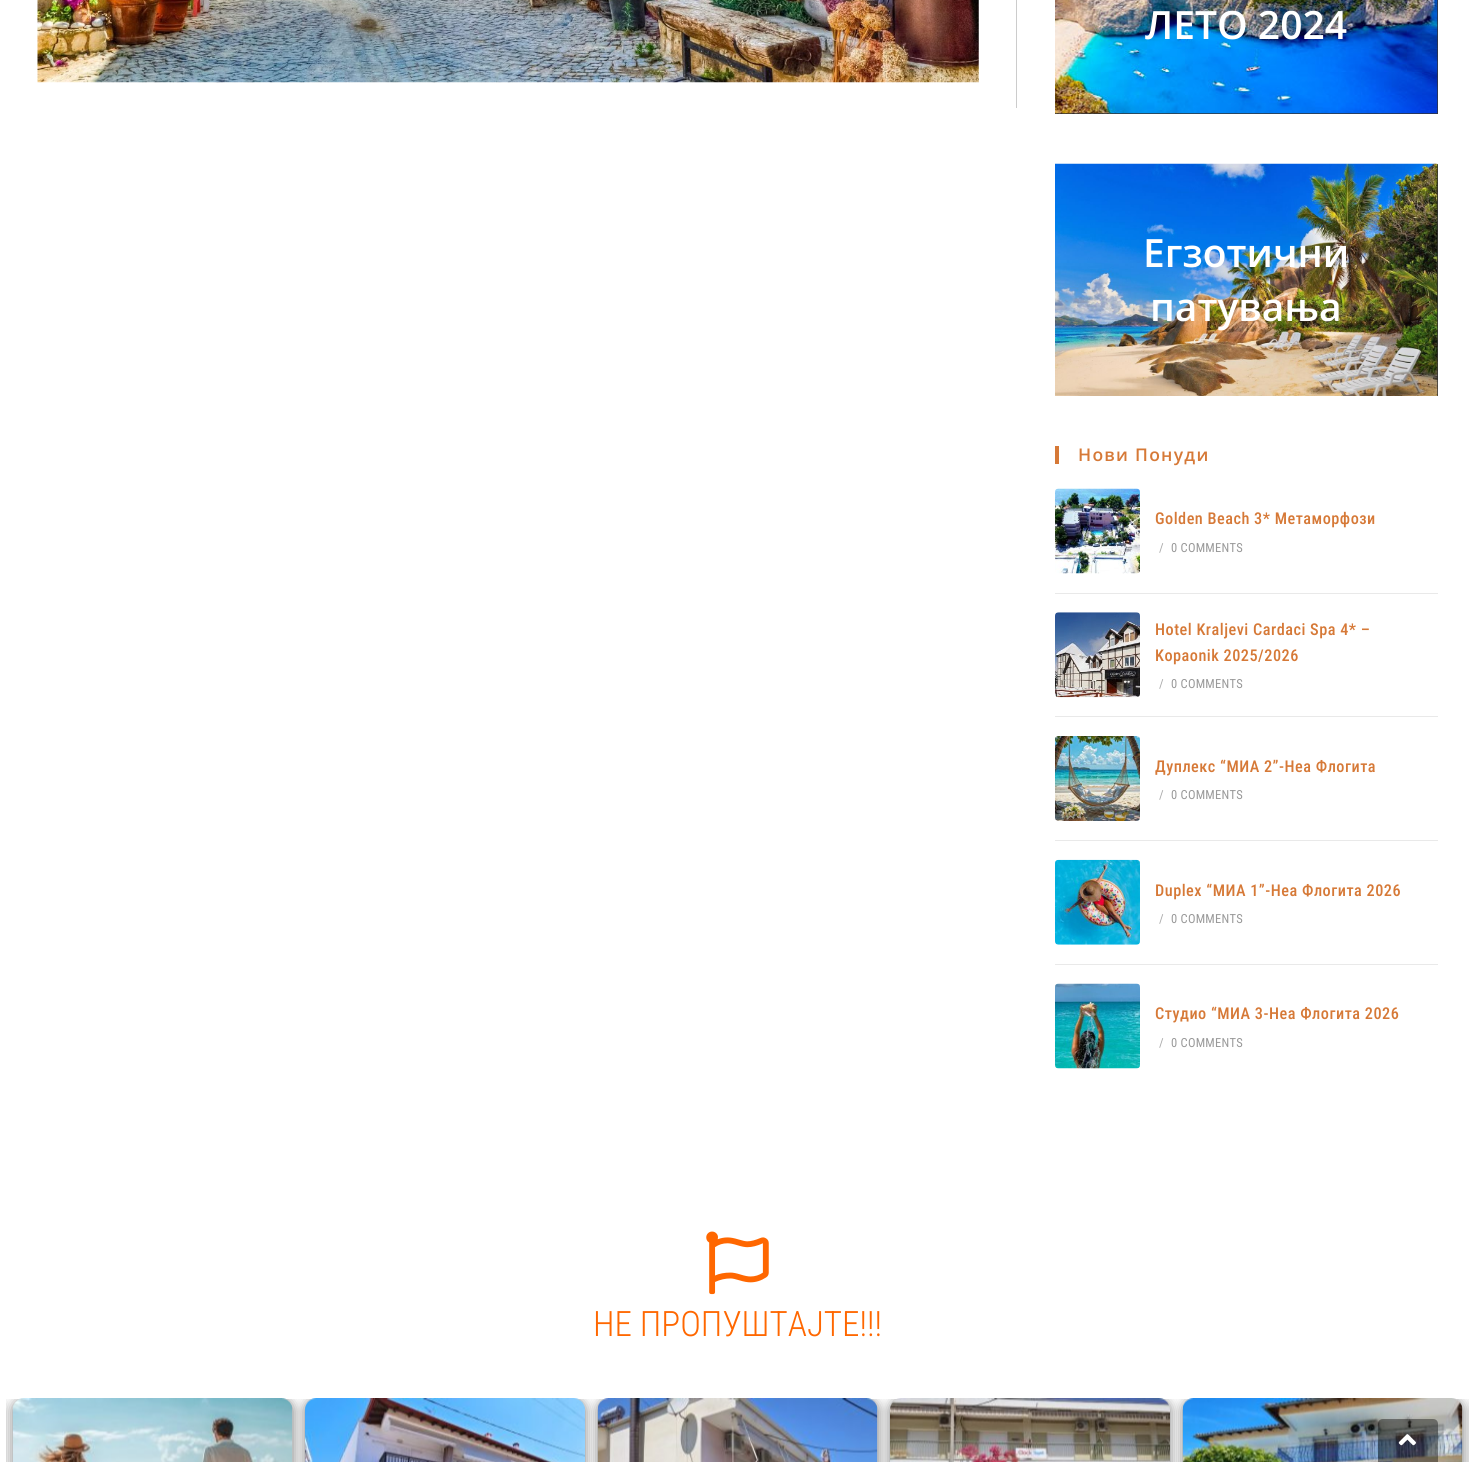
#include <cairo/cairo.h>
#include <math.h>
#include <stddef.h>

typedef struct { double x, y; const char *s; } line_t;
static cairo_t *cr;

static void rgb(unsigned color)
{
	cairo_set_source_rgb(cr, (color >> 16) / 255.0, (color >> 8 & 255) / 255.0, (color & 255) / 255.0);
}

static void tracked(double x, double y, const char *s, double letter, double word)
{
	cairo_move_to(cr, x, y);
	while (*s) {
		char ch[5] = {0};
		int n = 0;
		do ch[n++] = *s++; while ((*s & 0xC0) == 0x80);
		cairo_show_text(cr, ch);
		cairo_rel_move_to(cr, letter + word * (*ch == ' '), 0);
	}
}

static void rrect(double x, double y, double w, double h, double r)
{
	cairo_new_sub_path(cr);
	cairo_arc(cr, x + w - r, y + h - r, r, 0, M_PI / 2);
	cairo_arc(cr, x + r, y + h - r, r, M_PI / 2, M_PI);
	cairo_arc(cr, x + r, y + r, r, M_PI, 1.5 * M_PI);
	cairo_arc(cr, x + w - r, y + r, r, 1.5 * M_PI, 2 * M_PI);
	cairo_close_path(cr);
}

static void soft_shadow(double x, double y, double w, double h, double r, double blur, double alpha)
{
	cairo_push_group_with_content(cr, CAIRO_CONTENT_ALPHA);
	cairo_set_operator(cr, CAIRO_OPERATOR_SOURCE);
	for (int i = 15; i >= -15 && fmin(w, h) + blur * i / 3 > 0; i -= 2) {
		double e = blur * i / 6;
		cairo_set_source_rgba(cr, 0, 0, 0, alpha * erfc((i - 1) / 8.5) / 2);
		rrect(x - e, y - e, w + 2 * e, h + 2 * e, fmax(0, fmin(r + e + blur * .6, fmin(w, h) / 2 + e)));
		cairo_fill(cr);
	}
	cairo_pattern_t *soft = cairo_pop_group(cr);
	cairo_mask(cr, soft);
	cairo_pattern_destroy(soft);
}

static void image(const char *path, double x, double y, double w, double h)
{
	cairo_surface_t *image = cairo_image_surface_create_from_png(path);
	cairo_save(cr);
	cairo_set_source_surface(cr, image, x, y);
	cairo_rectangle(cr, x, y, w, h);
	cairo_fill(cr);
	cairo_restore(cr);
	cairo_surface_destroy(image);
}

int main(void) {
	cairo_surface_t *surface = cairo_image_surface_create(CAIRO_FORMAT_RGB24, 1474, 1462);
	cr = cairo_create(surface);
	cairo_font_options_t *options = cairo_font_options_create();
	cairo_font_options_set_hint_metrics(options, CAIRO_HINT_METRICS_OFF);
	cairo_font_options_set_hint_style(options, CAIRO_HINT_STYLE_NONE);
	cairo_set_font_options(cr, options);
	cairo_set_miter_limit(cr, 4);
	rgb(0xffffff);
	cairo_paint(cr);
	rgb(0xcccccc);
	cairo_rectangle(cr, 1016, 0, 1, 108);
	cairo_fill(cr);
	image("img/1.png", 37, 0, 942, 83);
	rgb(0x333333);
	cairo_rectangle(cr, 1055, 0, 383, 114);
	cairo_fill(cr);
	image("img/2.png", 1055, 0, 383, 114);
	cairo_rectangle(cr, 1437, 164, 1, 232);
	cairo_fill(cr);
	image("img/3.png", 1055, 163, 383, 233);
	rgb(0xd67937);
	cairo_rectangle(cr, 1055, 446, 4, 18);
	cairo_fill(cr);
	image("img/4.png", 1055, 488, 85, 86);
	rgb(0xe9e9e9);
	cairo_rectangle(cr, 1055, 593, 383, 1);
	cairo_fill(cr);
	image("img/5.png", 1055, 612, 85, 86);
	cairo_rectangle(cr, 1055, 716, 383, 1);
	cairo_fill(cr);
	image("img/6.png", 1055, 736, 85, 85);
	cairo_rectangle(cr, 1055, 840, 383, 1);
	cairo_fill(cr);
	image("img/7.png", 1055, 859, 85, 86);
	cairo_rectangle(cr, 1055, 964, 383, 1);
	cairo_fill(cr);
	image("img/8.png", 1055, 983, 85, 86);
	image("img/9.png", 706, 1231, 63, 64);
	cairo_save(cr);
	cairo_rectangle(cr, 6, 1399, 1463, 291);
	cairo_clip(cr);
	rgb(0x000000);
	soft_shadow(-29, 1399, 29, 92, 11, 6, 0.5);
	soft_shadow(13, 1399, 280, 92, 11, 6, 0.5);
	soft_shadow(305, 1399, 280, 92, 11, 6, 0.5);
	cairo_restore(cr);
	image("img/10.png", 12, 1398, 281, 64);
	cairo_save(cr);
	cairo_rectangle(cr, 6, 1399, 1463, 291);
	cairo_clip(cr);
	rgb(0x000000);
	soft_shadow(598, 1399, 280, 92, 11, 6, 0.5);
	cairo_restore(cr);
	image("img/11.png", 305, 1398, 280, 64);
	cairo_save(cr);
	cairo_rectangle(cr, 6, 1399, 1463, 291);
	cairo_clip(cr);
	rgb(0x000000);
	soft_shadow(890, 1399, 280, 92, 11, 6, 0.5);
	cairo_restore(cr);
	image("img/12.png", 597, 1398, 281, 64);
	cairo_save(cr);
	cairo_rectangle(cr, 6, 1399, 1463, 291);
	cairo_clip(cr);
	rgb(0x000000);
	soft_shadow(1183, 1399, 280, 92, 11, 6, 0.5);
	cairo_restore(cr);
	image("img/13.png", 890, 1398, 280, 64);
	cairo_save(cr);
	cairo_rectangle(cr, 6, 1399, 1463, 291);
	cairo_clip(cr);
	rgb(0x000000);
	soft_shadow(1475, 1399, 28, 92, 11, 6, 0.5);
	cairo_restore(cr);
	image("img/14.png", 1182, 1398, 281, 64);
	cairo_set_source_rgba(cr, 0, 0, 0, 0.4);
	cairo_new_path(cr);
	cairo_move_to(cr, 1383, 1419);
	cairo_line_to(cr, 1433, 1419);
	cairo_curve_to(cr, 1436, 1419, 1438, 1421, 1438, 1424);
	cairo_line_to(cr, 1438, 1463);
	cairo_line_to(cr, 1378, 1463);
	cairo_line_to(cr, 1378, 1424);
	cairo_curve_to(cr, 1378, 1421, 1380, 1419, 1383, 1419);
	cairo_close_path(cr);
	cairo_fill(cr);
	image("img/15.png", 1398, 1434, 18, 12);
	cairo_select_font_face(cr, "Open Sans SemiBold", CAIRO_FONT_SLANT_NORMAL, CAIRO_FONT_WEIGHT_NORMAL);
	cairo_set_font_size(cr, 39);
	rgb(0xffffff);
	{
		static const line_t items[] = {
			{1145, 39, "ЛЕТО 2024"},
			{1143, 267, "Егзотични"},
			{1150, 321, "патувања"},
		};
		for (size_t i = 0; i < sizeof items / sizeof *items; i++) {
			cairo_move_to(cr, items[i].x, items[i].y);
			cairo_show_text(cr, items[i].s);
		}
	}
	cairo_set_font_size(cr, 17.5);
	rgb(0xd67937);
	tracked(1078, 461, "Нови Понуди", 1.25, 0);
	cairo_select_font_face(cr, "Roboto Condensed Medium", CAIRO_FONT_SLANT_NORMAL, CAIRO_FONT_WEIGHT_NORMAL);
	cairo_set_font_size(cr, 16.25);
	tracked(1155, 524, "Golden Beach 3* Метаморфози", 0.5, 0);
	cairo_select_font_face(cr, "Roboto Condensed", CAIRO_FONT_SLANT_NORMAL, CAIRO_FONT_WEIGHT_NORMAL);
	cairo_set_font_size(cr, 12.5);
	rgb(0xaaaaaa);
	tracked(1159, 552, "/", 0.25, 0);
	rgb(0x999999);
	tracked(1171, 552, "0 COMMENTS", 0.25, 0);
	cairo_select_font_face(cr, "Roboto Condensed Medium", CAIRO_FONT_SLANT_NORMAL, CAIRO_FONT_WEIGHT_NORMAL);
	cairo_set_font_size(cr, 16.25);
	rgb(0xd67937);
	tracked(1155, 635, "Hotel Kraljevi Cardaci Spa 4* –", 0.5, 0);
	tracked(1155, 661, "Kopaonik 2025/2026", 0.5, 0);
	cairo_select_font_face(cr, "Roboto Condensed", CAIRO_FONT_SLANT_NORMAL, CAIRO_FONT_WEIGHT_NORMAL);
	cairo_set_font_size(cr, 12.5);
	rgb(0xaaaaaa);
	tracked(1159, 688, "/", 0.25, 0);
	rgb(0x999999);
	tracked(1171, 688, "0 COMMENTS", 0.25, 0);
	cairo_select_font_face(cr, "Roboto Condensed Medium", CAIRO_FONT_SLANT_NORMAL, CAIRO_FONT_WEIGHT_NORMAL);
	cairo_set_font_size(cr, 16.25);
	rgb(0xd67937);
	tracked(1155, 772, "Дуплекс “МИА 2”-Неа Флогита", 0.5, 0);
	cairo_select_font_face(cr, "Roboto Condensed", CAIRO_FONT_SLANT_NORMAL, CAIRO_FONT_WEIGHT_NORMAL);
	cairo_set_font_size(cr, 12.5);
	rgb(0xaaaaaa);
	tracked(1159, 799, "/", 0.25, 0);
	rgb(0x999999);
	tracked(1171, 799, "0 COMMENTS", 0.25, 0);
	cairo_select_font_face(cr, "Roboto Condensed Medium", CAIRO_FONT_SLANT_NORMAL, CAIRO_FONT_WEIGHT_NORMAL);
	cairo_set_font_size(cr, 16.25);
	rgb(0xd67937);
	tracked(1155, 896, "Duplex “МИА 1”-Неа Флогита 2026", 0.5, 0);
	cairo_select_font_face(cr, "Roboto Condensed", CAIRO_FONT_SLANT_NORMAL, CAIRO_FONT_WEIGHT_NORMAL);
	cairo_set_font_size(cr, 12.5);
	rgb(0xaaaaaa);
	tracked(1159, 923, "/", 0.25, 0);
	rgb(0x999999);
	tracked(1171, 923, "0 COMMENTS", 0.25, 0);
	cairo_select_font_face(cr, "Roboto Condensed Medium", CAIRO_FONT_SLANT_NORMAL, CAIRO_FONT_WEIGHT_NORMAL);
	cairo_set_font_size(cr, 16.25);
	rgb(0xd67937);
	tracked(1155, 1019, "Студио “МИА 3-Неа Флогита 2026", 0.5, 0);
	cairo_select_font_face(cr, "Roboto Condensed", CAIRO_FONT_SLANT_NORMAL, CAIRO_FONT_WEIGHT_NORMAL);
	cairo_set_font_size(cr, 12.5);
	rgb(0xaaaaaa);
	tracked(1159, 1047, "/", 0.25, 0);
	rgb(0x999999);
	tracked(1171, 1047, "0 COMMENTS", 0.25, 0);
	cairo_select_font_face(cr, "Roboto Condensed Light", CAIRO_FONT_SLANT_NORMAL, CAIRO_FONT_WEIGHT_NORMAL);
	cairo_set_font_size(cr, 35);
	rgb(0xff6700);
	cairo_move_to(cr, 593, 1336);
	cairo_show_text(cr, "НЕ ПРОПУШТАЈТЕ!!!");
	cairo_surface_write_to_png(surface, "page.png");
	cairo_font_options_destroy(options);
	cairo_destroy(cr);
	cairo_surface_destroy(surface);
	return 0;
}
